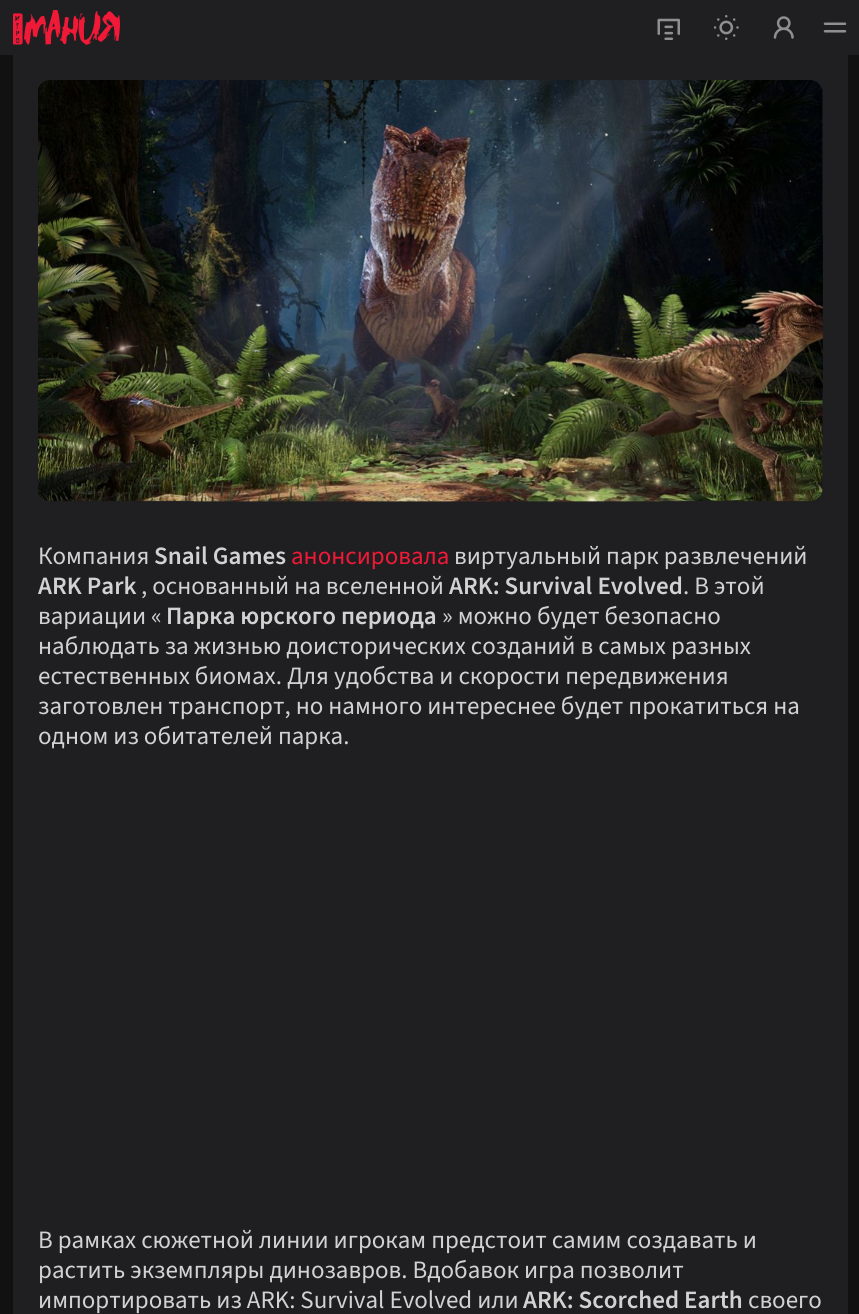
#include <cairo/cairo.h>
#include <math.h>
#include <stddef.h>

typedef struct { double x, y; const char *s; } line_t;
static cairo_t *cr;

static void rgb(unsigned color)
{
	cairo_set_source_rgb(cr, (color >> 16) / 255.0, (color >> 8 & 255) / 255.0, (color & 255) / 255.0);
}

static void image(const char *path, double x, double y, double w, double h)
{
	cairo_surface_t *image = cairo_image_surface_create_from_png(path);
	cairo_save(cr);
	cairo_set_source_surface(cr, image, x, y);
	cairo_rectangle(cr, x, y, w, h);
	cairo_fill(cr);
	cairo_restore(cr);
	cairo_surface_destroy(image);
}

int main(void) {
	cairo_surface_t *surface = cairo_image_surface_create(CAIRO_FORMAT_RGB24, 859, 1314);
	cr = cairo_create(surface);
	cairo_font_options_t *options = cairo_font_options_create();
	cairo_font_options_set_hint_metrics(options, CAIRO_HINT_METRICS_OFF);
	cairo_font_options_set_hint_style(options, CAIRO_HINT_STYLE_NONE);
	cairo_set_font_options(cr, options);
	cairo_set_miter_limit(cr, 4);
	rgb(0x111112);
	cairo_paint(cr);
	rgb(0x1f1f21);
	cairo_rectangle(cr, 0, 0, 859, 55);
	cairo_fill(cr);
	image("img/1.png", 13, 10, 107, 35);
	image("img/2.png", 657, 18, 23, 22);
	image("img/3.png", 714, 15, 25, 25);
	image("img/4.png", 773, 16, 21, 23);
	image("img/5.png", 823, 22, 24, 11);
	cairo_rectangle(cr, 13, 55, 835, 1259);
	cairo_fill(cr);
	image("img/6.png", 38, 80, 785, 422);
	cairo_select_font_face(cr, "Source Sans 3", CAIRO_FONT_SLANT_NORMAL, CAIRO_FONT_WEIGHT_NORMAL);
	cairo_set_font_size(cr, 25);
	rgb(0xd2d2d3);
	cairo_move_to(cr, 38, 564);
	cairo_show_text(cr, "Компания");
	cairo_select_font_face(cr, "Source Sans 3 SemiBold", CAIRO_FONT_SLANT_NORMAL, CAIRO_FONT_WEIGHT_NORMAL);
	cairo_move_to(cr, 154, 564);
	cairo_show_text(cr, "Snail Games");
	cairo_select_font_face(cr, "Source Sans 3", CAIRO_FONT_SLANT_NORMAL, CAIRO_FONT_WEIGHT_NORMAL);
	rgb(0xf01937);
	cairo_move_to(cr, 291, 564);
	cairo_show_text(cr, "анонсировала");
	rgb(0xd2d2d3);
	cairo_move_to(cr, 454, 564);
	cairo_show_text(cr, "виртуальный парк развлечений");
	cairo_select_font_face(cr, "Source Sans 3 SemiBold", CAIRO_FONT_SLANT_NORMAL, CAIRO_FONT_WEIGHT_NORMAL);
	cairo_move_to(cr, 38, 594);
	cairo_show_text(cr, "ARK Park");
	cairo_select_font_face(cr, "Source Sans 3", CAIRO_FONT_SLANT_NORMAL, CAIRO_FONT_WEIGHT_NORMAL);
	cairo_move_to(cr, 141, 594);
	cairo_show_text(cr, ", основанный на вселенной");
	cairo_select_font_face(cr, "Source Sans 3 SemiBold", CAIRO_FONT_SLANT_NORMAL, CAIRO_FONT_WEIGHT_NORMAL);
	cairo_move_to(cr, 449, 594);
	cairo_show_text(cr, "ARK: Survival Evolved");
	cairo_select_font_face(cr, "Source Sans 3", CAIRO_FONT_SLANT_NORMAL, CAIRO_FONT_WEIGHT_NORMAL);
	cairo_move_to(cr, 683, 594);
	cairo_show_text(cr, ". В этой");
	cairo_move_to(cr, 38, 624);
	cairo_show_text(cr, "вариации «");
	cairo_select_font_face(cr, "Source Sans 3 SemiBold", CAIRO_FONT_SLANT_NORMAL, CAIRO_FONT_WEIGHT_NORMAL);
	cairo_move_to(cr, 166, 624);
	cairo_show_text(cr, "Парка юрского периода");
	cairo_select_font_face(cr, "Source Sans 3", CAIRO_FONT_SLANT_NORMAL, CAIRO_FONT_WEIGHT_NORMAL);
	{
		static const line_t items[] = {
			{442, 624, "» можно будет безопасно"},
			{38, 654, "наблюдать за жизнью доисторических созданий в самых разных"},
			{38, 684, "естественных биомах. Для удобства и скорости передвижения"},
			{38, 714, "заготовлен транспорт, но намного интереснее будет прокатиться на"},
			{38, 744, "одном из обитателей парка."},
			{38, 1248, "В рамках сюжетной линии игрокам предстоит самим создавать и"},
			{38, 1278, "растить экземпляры динозавров. Вдобавок игра позволит"},
			{38, 1308, "импортировать из ARK: Survival Evolved или"},
		};
		for (size_t i = 0; i < sizeof items / sizeof *items; i++) {
			cairo_move_to(cr, items[i].x, items[i].y);
			cairo_show_text(cr, items[i].s);
		}
	}
	cairo_select_font_face(cr, "Source Sans 3 SemiBold", CAIRO_FONT_SLANT_NORMAL, CAIRO_FONT_WEIGHT_NORMAL);
	cairo_move_to(cr, 523, 1308);
	cairo_show_text(cr, "ARK: Scorched Earth");
	cairo_select_font_face(cr, "Source Sans 3", CAIRO_FONT_SLANT_NORMAL, CAIRO_FONT_WEIGHT_NORMAL);
	cairo_move_to(cr, 748, 1308);
	cairo_show_text(cr, "своего");
	cairo_surface_write_to_png(surface, "page.png");
	cairo_font_options_destroy(options);
	cairo_destroy(cr);
	cairo_surface_destroy(surface);
	return 0;
}
